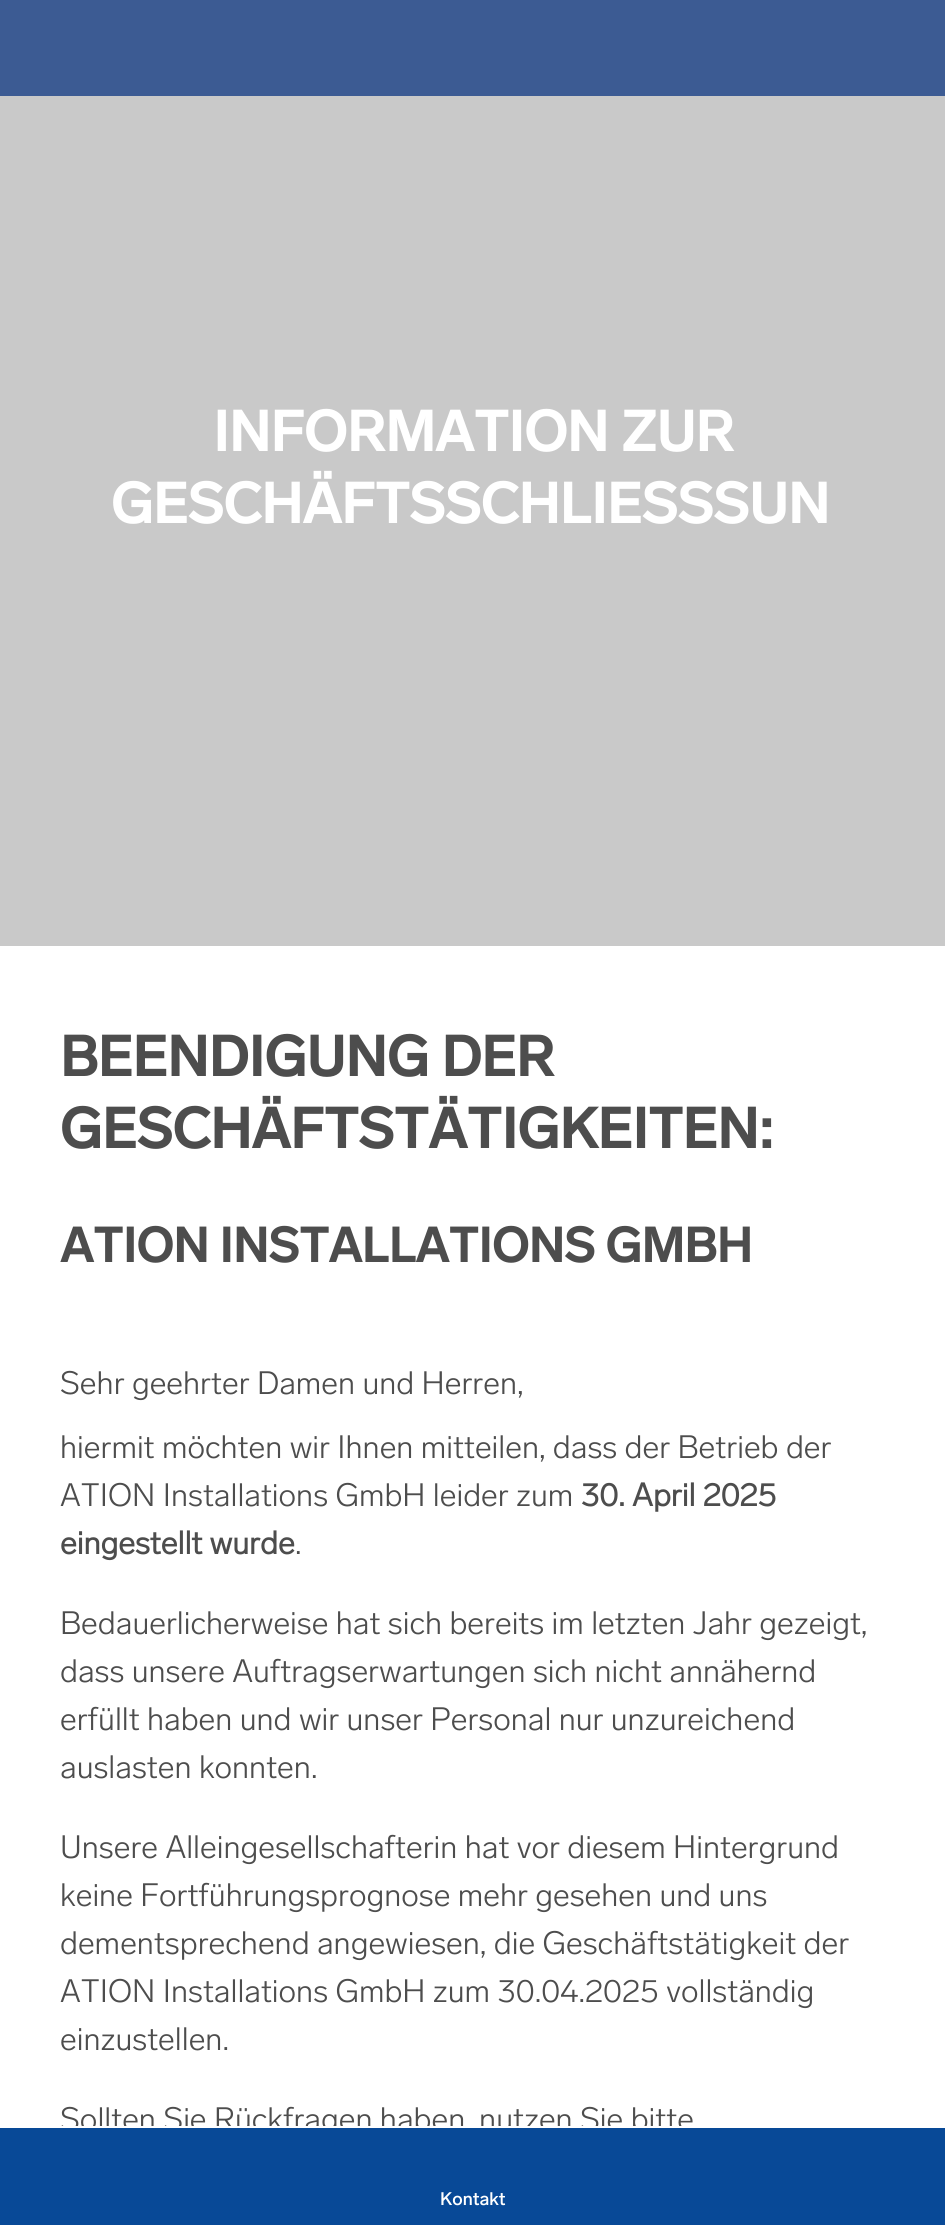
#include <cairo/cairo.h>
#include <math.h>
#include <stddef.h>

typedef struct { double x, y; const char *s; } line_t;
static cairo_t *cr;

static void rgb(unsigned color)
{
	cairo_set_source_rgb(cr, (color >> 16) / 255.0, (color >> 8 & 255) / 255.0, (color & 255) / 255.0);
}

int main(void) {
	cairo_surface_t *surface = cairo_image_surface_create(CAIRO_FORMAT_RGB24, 945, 2225);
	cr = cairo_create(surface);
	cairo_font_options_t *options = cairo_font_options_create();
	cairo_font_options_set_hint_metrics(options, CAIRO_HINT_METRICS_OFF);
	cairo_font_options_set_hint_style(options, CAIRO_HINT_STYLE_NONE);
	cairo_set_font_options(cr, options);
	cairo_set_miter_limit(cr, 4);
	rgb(0xffffff);
	cairo_paint(cr);
	rgb(0x3c5b93);
	cairo_rectangle(cr, 0, 0, 945, 96);
	cairo_fill(cr);
	rgb(0xc9c9c9);
	cairo_rectangle(cr, 0, 96, 945, 850);
	cairo_fill(cr);
	cairo_select_font_face(cr, "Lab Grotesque", CAIRO_FONT_SLANT_NORMAL, CAIRO_FONT_WEIGHT_BOLD);
	cairo_set_font_size(cr, 56);
	rgb(0xffffff);
	cairo_move_to(cr, 213, 451);
	cairo_show_text(cr, "INFORMATION ZUR");
	cairo_move_to(cr, 111, 523);
	cairo_show_text(cr, "GESCHÄFTSSCHLIESSSUN");
	rgb(0x4d4d4d);
	cairo_move_to(cr, 60, 1076);
	cairo_show_text(cr, "BEENDIGUNG DER");
	cairo_move_to(cr, 60, 1148);
	cairo_show_text(cr, "GESCHÄFTSTÄTIGKEITEN:");
	cairo_set_font_size(cr, 48);
	cairo_move_to(cr, 60, 1262);
	cairo_show_text(cr, "ATION INSTALLATIONS GMBH");
	cairo_select_font_face(cr, "Lab Grotesque Light", CAIRO_FONT_SLANT_NORMAL, CAIRO_FONT_WEIGHT_NORMAL);
	cairo_set_font_size(cr, 32);
	{
		static const line_t items[] = {
			{60, 1394, "Sehr geehrter Damen und Herren,"},
			{60, 1458, "hiermit möchten wir Ihnen mitteilen, dass der Betrieb der"},
			{60, 1506, "ATION Installations GmbH leider zum"},
		};
		for (size_t i = 0; i < sizeof items / sizeof *items; i++) {
			cairo_move_to(cr, items[i].x, items[i].y);
			cairo_show_text(cr, items[i].s);
		}
	}
	cairo_select_font_face(cr, "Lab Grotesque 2", CAIRO_FONT_SLANT_NORMAL, CAIRO_FONT_WEIGHT_BOLD);
	cairo_move_to(cr, 581, 1506);
	cairo_show_text(cr, "30. April 2025");
	cairo_move_to(cr, 60, 1554);
	cairo_show_text(cr, "eingestellt wurde");
	cairo_select_font_face(cr, "Lab Grotesque Light", CAIRO_FONT_SLANT_NORMAL, CAIRO_FONT_WEIGHT_NORMAL);
	{
		static const line_t items[] = {
			{295, 1554, "."},
			{60, 1634, "Bedauerlicherweise hat sich bereits im letzten Jahr gezeigt,"},
			{60, 1682, "dass unsere Auftragserwartungen sich nicht annähernd"},
			{60, 1730, "erfüllt haben und wir unser Personal nur unzureichend"},
			{60, 1778, "auslasten konnten."},
			{60, 1858, "Unsere Alleingesellschafterin hat vor diesem Hintergrund"},
			{60, 1906, "keine Fortführungsprognose mehr gesehen und uns"},
			{60, 1954, "dementsprechend angewiesen, die Geschäftstätigkeit der"},
			{60, 2002, "ATION Installations GmbH zum 30.04.2025 vollständig"},
			{60, 2050, "einzustellen."},
			{60, 2130, "Sollten Sie Rückfragen haben, nutzen Sie bitte"},
		};
		for (size_t i = 0; i < sizeof items / sizeof *items; i++) {
			cairo_move_to(cr, items[i].x, items[i].y);
			cairo_show_text(cr, items[i].s);
		}
	}
	rgb(0x084997);
	cairo_rectangle(cr, 0, 2128, 945, 97);
	cairo_fill(cr);
	rgb(0xffffff);
	cairo_rectangle(cr, 61, 2126, 632, 2);
	cairo_fill(cr);
	cairo_select_font_face(cr, "Lab Grotesque Medium", CAIRO_FONT_SLANT_NORMAL, CAIRO_FONT_WEIGHT_NORMAL);
	cairo_set_font_size(cr, 18);
	cairo_move_to(cr, 440, 2205);
	cairo_show_text(cr, "Kontakt");
	cairo_surface_write_to_png(surface, "page.png");
	cairo_font_options_destroy(options);
	cairo_destroy(cr);
	cairo_surface_destroy(surface);
	return 0;
}
